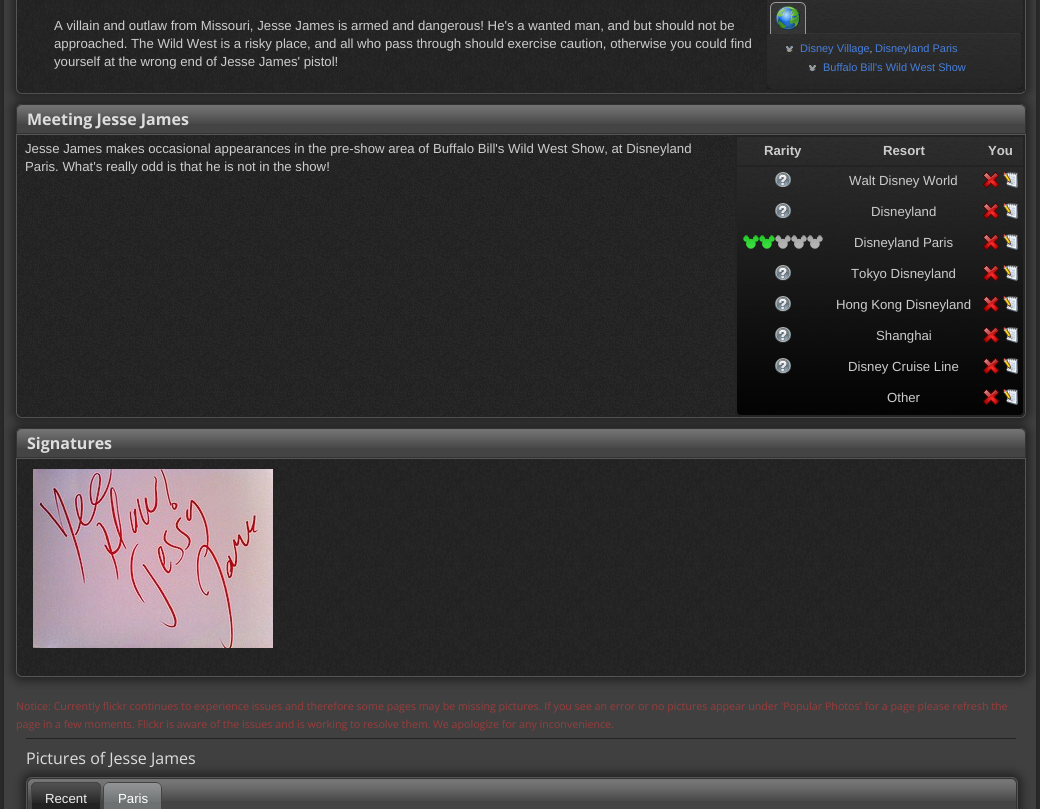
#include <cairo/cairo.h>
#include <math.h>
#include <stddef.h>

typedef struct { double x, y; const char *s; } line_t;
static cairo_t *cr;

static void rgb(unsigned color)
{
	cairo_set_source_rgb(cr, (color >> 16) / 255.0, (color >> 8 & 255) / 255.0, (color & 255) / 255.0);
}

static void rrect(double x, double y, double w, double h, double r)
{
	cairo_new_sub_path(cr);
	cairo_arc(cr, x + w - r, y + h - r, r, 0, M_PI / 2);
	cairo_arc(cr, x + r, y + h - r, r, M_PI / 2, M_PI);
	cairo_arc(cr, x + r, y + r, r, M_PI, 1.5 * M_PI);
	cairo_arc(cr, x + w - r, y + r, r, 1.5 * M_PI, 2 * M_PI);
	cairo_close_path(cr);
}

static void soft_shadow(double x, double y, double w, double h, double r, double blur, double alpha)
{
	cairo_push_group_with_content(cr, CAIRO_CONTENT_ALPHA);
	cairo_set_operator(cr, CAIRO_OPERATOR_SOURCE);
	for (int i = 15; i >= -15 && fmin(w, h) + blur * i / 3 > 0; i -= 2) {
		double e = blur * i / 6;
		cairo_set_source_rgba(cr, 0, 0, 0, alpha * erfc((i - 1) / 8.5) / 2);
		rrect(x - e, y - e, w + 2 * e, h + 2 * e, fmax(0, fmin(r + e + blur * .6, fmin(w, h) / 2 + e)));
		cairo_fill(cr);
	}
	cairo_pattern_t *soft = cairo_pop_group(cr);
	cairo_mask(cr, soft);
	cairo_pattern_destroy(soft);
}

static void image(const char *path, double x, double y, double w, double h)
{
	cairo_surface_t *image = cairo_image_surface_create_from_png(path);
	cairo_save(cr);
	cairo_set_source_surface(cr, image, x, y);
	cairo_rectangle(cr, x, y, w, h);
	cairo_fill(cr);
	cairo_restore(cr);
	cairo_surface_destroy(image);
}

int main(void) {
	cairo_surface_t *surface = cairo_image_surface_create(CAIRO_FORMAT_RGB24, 1040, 809);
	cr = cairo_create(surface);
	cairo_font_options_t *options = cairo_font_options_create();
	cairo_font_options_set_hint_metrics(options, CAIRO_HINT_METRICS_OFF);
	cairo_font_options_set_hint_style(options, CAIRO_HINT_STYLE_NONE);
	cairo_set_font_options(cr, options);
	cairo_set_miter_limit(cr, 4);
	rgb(0x333333);
	cairo_paint(cr);
	rgb(0x222222);
	soft_shadow(0, -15, 1040, 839, 0, 5, 1);
	rgb(0x404040);
	cairo_rectangle(cr, 4, 0, 1032, 809);
	cairo_fill(cr);
	rgb(0x222222);
	soft_shadow(12, -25, 1018, 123, 10, 5, 1);
	image("img/1.png", 16, 0, 1010, 94);
	cairo_new_path(cr);
	cairo_move_to(cr, 16.5, -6.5);
	cairo_line_to(cr, 1025.5, -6.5);
	cairo_line_to(cr, 1025.5, 88);
	cairo_curve_to(cr, 1025.5, 91, 1023, 93.5, 1020, 93.5);
	cairo_line_to(cr, 22, 93.5);
	cairo_curve_to(cr, 19, 93.5, 16.5, 91, 16.5, 88);
	cairo_close_path(cr);
	rgb(0x555555);
	cairo_set_line_width(cr, 1);
	cairo_stroke(cr);
	image("img/2.png", 767, 0, 256, 89);
	cairo_rectangle(cr, 766, -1, 258, 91);
	rgb(0x232323);
	cairo_set_line_width(cr, 2);
	cairo_stroke(cr);
	rgb(0x222222);
	soft_shadow(12, 100, 1018, 322, 10, 5, 1);
	image("img/3.png", 767, 0, 256, 89);
	image("img/4.png", 767, 0, 256, 33);
	rgb(0x333333);
	cairo_rectangle(cr, 806, 33, 214, 1);
	cairo_fill(cr);
	image("img/5.png", 770, 2, 36, 32);
	rgb(0x999999);
	cairo_set_fill_rule(cr, CAIRO_FILL_RULE_EVEN_ODD);
	cairo_new_path(cr);
	cairo_move_to(cr, 776, 2);
	cairo_line_to(cr, 800, 2);
	cairo_curve_to(cr, 803.5, 2, 806, 4.5, 806, 8);
	cairo_line_to(cr, 806, 34);
	cairo_line_to(cr, 770, 34);
	cairo_line_to(cr, 770, 8);
	cairo_curve_to(cr, 770, 4.5, 772.5, 2, 776, 2);
	cairo_close_path(cr);
	cairo_move_to(cr, 776, 3);
	cairo_line_to(cr, 800, 3);
	cairo_curve_to(cr, 803, 3, 805, 5, 805, 8);
	cairo_line_to(cr, 805, 34);
	cairo_line_to(cr, 771, 34);
	cairo_line_to(cr, 771, 8);
	cairo_curve_to(cr, 771, 5, 773, 3, 776, 3);
	cairo_close_path(cr);
	cairo_fill(cr);
	image("img/6.png", 776, 6, 24, 24);
	image("img/7.png", 767, 34, 254, 55);
	image("img/8.png", 786, 46, 7, 6);
	image("img/8.png", 809, 65, 7, 6);
	rgb(0x444444);
	cairo_new_path(cr);
	cairo_move_to(cr, 22, 104);
	cairo_line_to(cr, 1020, 104);
	cairo_curve_to(cr, 1023.5, 104, 1026, 106.5, 1026, 110);
	cairo_line_to(cr, 1026, 134);
	cairo_line_to(cr, 16, 134);
	cairo_line_to(cr, 16, 110);
	cairo_curve_to(cr, 16, 106.5, 18.5, 104, 22, 104);
	cairo_close_path(cr);
	cairo_fill(cr);
	image("img/9.png", 16, 104, 1010, 20);
	cairo_new_path(cr);
	cairo_move_to(cr, 22, 104.5);
	cairo_line_to(cr, 1020, 104.5);
	cairo_curve_to(cr, 1023, 104.5, 1025.5, 107, 1025.5, 110);
	cairo_line_to(cr, 1025.5, 133.5);
	cairo_line_to(cr, 16.5, 133.5);
	cairo_line_to(cr, 16.5, 110);
	cairo_curve_to(cr, 16.5, 107, 19, 104.5, 22, 104.5);
	cairo_close_path(cr);
	rgb(0x333333);
	cairo_set_line_width(cr, 1);
	cairo_stroke(cr);
	image("img/10.png", 16, 135, 1010, 283);
	cairo_new_path(cr);
	cairo_move_to(cr, 16.5, 134.5);
	cairo_line_to(cr, 1025.5, 134.5);
	cairo_line_to(cr, 1025.5, 412);
	cairo_curve_to(cr, 1025.5, 415, 1023, 417.5, 1020, 417.5);
	cairo_line_to(cr, 22, 417.5);
	cairo_curve_to(cr, 19, 417.5, 16.5, 415, 16.5, 412);
	cairo_close_path(cr);
	rgb(0x555555);
	cairo_stroke(cr);
	image("img/11.png", 735, 137, 290, 280);
	cairo_new_path(cr);
	cairo_move_to(cr, 736, 136);
	cairo_line_to(cr, 1024, 136);
	cairo_line_to(cr, 1024, 411);
	cairo_curve_to(cr, 1024, 414, 1022, 416, 1019, 416);
	cairo_line_to(cr, 741, 416);
	cairo_curve_to(cr, 738, 416, 736, 414, 736, 411);
	cairo_close_path(cr);
	rgb(0x232323);
	cairo_set_line_width(cr, 2);
	cairo_stroke(cr);
	cairo_rectangle(cr, 737, 165, 286, 2);
	cairo_fill(cr);
	image("img/12.png", 775, 172, 16, 15);
	image("img/13.png", 983, 172, 16, 16);
	image("img/14.png", 1003, 172, 15, 16);
	image("img/15.png", 775, 203, 16, 16);
	image("img/16.png", 983, 203, 16, 16);
	image("img/17.png", 1003, 203, 15, 16);
	image("img/18.png", 743, 235, 80, 14);
	image("img/19.png", 983, 234, 16, 16);
	image("img/20.png", 1003, 234, 15, 16);
	image("img/21.png", 775, 265, 16, 16);
	image("img/22.png", 983, 265, 16, 16);
	image("img/23.png", 1003, 265, 15, 16);
	image("img/24.png", 775, 296, 16, 16);
	image("img/25.png", 983, 296, 16, 16);
	image("img/26.png", 1003, 296, 15, 16);
	image("img/27.png", 775, 327, 16, 16);
	image("img/28.png", 983, 327, 16, 16);
	image("img/29.png", 1003, 327, 15, 16);
	image("img/30.png", 775, 358, 16, 16);
	image("img/31.png", 983, 358, 16, 16);
	image("img/32.png", 1003, 358, 15, 16);
	image("img/33.png", 983, 389, 16, 16);
	image("img/34.png", 1003, 389, 15, 16);
	rgb(0x222222);
	soft_shadow(12, 424, 1018, 257, 10, 5, 1);
	rgb(0x444444);
	cairo_new_path(cr);
	cairo_move_to(cr, 22, 428);
	cairo_line_to(cr, 1020, 428);
	cairo_curve_to(cr, 1023.5, 428, 1026, 430.5, 1026, 434);
	cairo_line_to(cr, 1026, 458);
	cairo_line_to(cr, 16, 458);
	cairo_line_to(cr, 16, 434);
	cairo_curve_to(cr, 16, 430.5, 18.5, 428, 22, 428);
	cairo_close_path(cr);
	cairo_fill(cr);
	image("img/9.png", 16, 428, 1010, 20);
	cairo_new_path(cr);
	cairo_move_to(cr, 22, 428.5);
	cairo_line_to(cr, 1020, 428.5);
	cairo_curve_to(cr, 1023, 428.5, 1025.5, 431, 1025.5, 434);
	cairo_line_to(cr, 1025.5, 457.5);
	cairo_line_to(cr, 16.5, 457.5);
	cairo_line_to(cr, 16.5, 434);
	cairo_curve_to(cr, 16.5, 431, 19, 428.5, 22, 428.5);
	cairo_close_path(cr);
	rgb(0x333333);
	cairo_set_line_width(cr, 1);
	cairo_stroke(cr);
	image("img/35.png", 16, 459, 1010, 218);
	cairo_new_path(cr);
	cairo_move_to(cr, 16.5, 458.5);
	cairo_line_to(cr, 1025.5, 458.5);
	cairo_line_to(cr, 1025.5, 671);
	cairo_curve_to(cr, 1025.5, 674, 1023, 676.5, 1020, 676.5);
	cairo_line_to(cr, 22, 676.5);
	cairo_curve_to(cr, 19, 676.5, 16.5, 674, 16.5, 671);
	cairo_close_path(cr);
	rgb(0x555555);
	cairo_stroke(cr);
	image("img/36.png", 33, 469, 240, 179);
	rgb(0x232323);
	cairo_rectangle(cr, 26, 738, 990, 1);
	cairo_fill(cr);
	rgb(0x222222);
	soft_shadow(22, 773, 1000, 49, 10, 5, 1);
	image("img/37.png", 26, 777, 992, 7);
	rrect(26.5, 777.5, 991, 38, 5.5);
	rgb(0x555555);
	cairo_stroke(cr);
	rgb(0x444444);
	rrect(27, 778, 990, 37, 6);
	cairo_fill(cr);
	image("img/38.png", 27, 778, 990, 23);
	rrect(27.5, 778.5, 989, 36, 5.5);
	rgb(0x333333);
	cairo_stroke(cr);
	rgb(0x222222);
	cairo_new_path(cr);
	cairo_move_to(cr, 37, 782);
	cairo_line_to(cr, 95, 782);
	cairo_curve_to(cr, 98.5, 782, 101, 784.5, 101, 788);
	cairo_line_to(cr, 101, 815);
	cairo_line_to(cr, 31, 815);
	cairo_line_to(cr, 31, 788);
	cairo_curve_to(cr, 31, 784.5, 33.5, 782, 37, 782);
	cairo_close_path(cr);
	cairo_fill(cr);
	image("img/39.png", 31, 782, 70, 21);
	rgb(0x444444);
	cairo_new_path(cr);
	cairo_move_to(cr, 37, 782);
	cairo_line_to(cr, 95, 782);
	cairo_curve_to(cr, 98, 782, 101, 785, 101, 788);
	cairo_line_to(cr, 101, 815);
	cairo_line_to(cr, 31, 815);
	cairo_line_to(cr, 31, 788);
	cairo_curve_to(cr, 31, 785, 34, 782, 37, 782);
	cairo_close_path(cr);
	cairo_move_to(cr, 37, 783);
	cairo_line_to(cr, 95, 783);
	cairo_curve_to(cr, 98, 783, 100, 785, 100, 788);
	cairo_line_to(cr, 100, 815);
	cairo_line_to(cr, 32, 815);
	cairo_line_to(cr, 32, 788);
	cairo_curve_to(cr, 32, 785, 34, 783, 37, 783);
	cairo_close_path(cr);
	cairo_fill(cr);
	rgb(0x6e7172);
	cairo_new_path(cr);
	cairo_move_to(cr, 109, 782);
	cairo_line_to(cr, 156, 782);
	cairo_curve_to(cr, 159.5, 782, 162, 784.5, 162, 788);
	cairo_line_to(cr, 162, 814);
	cairo_line_to(cr, 103, 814);
	cairo_line_to(cr, 103, 788);
	cairo_curve_to(cr, 103, 784.5, 105.5, 782, 109, 782);
	cairo_close_path(cr);
	cairo_fill(cr);
	image("img/40.png", 103, 782, 59, 20);
	rgb(0x424342);
	cairo_new_path(cr);
	cairo_move_to(cr, 109, 782);
	cairo_line_to(cr, 156, 782);
	cairo_curve_to(cr, 159, 782, 162, 785, 162, 788);
	cairo_line_to(cr, 162, 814);
	cairo_line_to(cr, 103, 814);
	cairo_line_to(cr, 103, 788);
	cairo_curve_to(cr, 103, 785, 106, 782, 109, 782);
	cairo_close_path(cr);
	cairo_move_to(cr, 109, 783);
	cairo_line_to(cr, 156, 783);
	cairo_curve_to(cr, 159, 783, 161, 785, 161, 788);
	cairo_line_to(cr, 161, 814);
	cairo_line_to(cr, 104, 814);
	cairo_line_to(cr, 104, 788);
	cairo_curve_to(cr, 104, 785, 106, 783, 109, 783);
	cairo_close_path(cr);
	cairo_fill(cr);
	cairo_select_font_face(cr, "Liberation Sans", CAIRO_FONT_SLANT_NORMAL, CAIRO_FONT_WEIGHT_NORMAL);
	cairo_set_font_size(cr, 13.2);
	rgb(0xcccccc);
	{
		static const line_t items[] = {
			{54, 30, "A villain and outlaw from Missouri, Jesse James is armed and dangerous! He's a wanted man, and but should not be"},
			{54, 48, "approached. The Wild West is a risky place, and all who pass through should exercise caution, otherwise you could find"},
			{54, 66, "yourself at the wrong end of Jesse James' pistol!"},
		};
		for (size_t i = 0; i < sizeof items / sizeof *items; i++) {
			cairo_move_to(cr, items[i].x, items[i].y);
			cairo_show_text(cr, items[i].s);
		}
	}
	cairo_set_font_size(cr, 11);
	rgb(0x477eda);
	cairo_move_to(cr, 800, 52);
	cairo_show_text(cr, "Disney Village");
	cairo_select_font_face(cr, "Liberation Sans", CAIRO_FONT_SLANT_ITALIC, CAIRO_FONT_WEIGHT_NORMAL);
	cairo_set_font_size(cr, 10);
	rgb(0xcccccc);
	cairo_move_to(cr, 870, 52);
	cairo_show_text(cr, ",");
	cairo_select_font_face(cr, "Liberation Sans", CAIRO_FONT_SLANT_NORMAL, CAIRO_FONT_WEIGHT_NORMAL);
	cairo_set_font_size(cr, 11);
	rgb(0x477eda);
	cairo_move_to(cr, 875, 52);
	cairo_show_text(cr, "Disneyland Paris");
	cairo_move_to(cr, 823, 71);
	cairo_show_text(cr, "Buffalo Bill's Wild West Show");
	cairo_select_font_face(cr, "Open Sans", CAIRO_FONT_SLANT_NORMAL, CAIRO_FONT_WEIGHT_BOLD);
	cairo_set_font_size(cr, 16);
	rgb(0xdddddd);
	cairo_move_to(cr, 27, 125);
	cairo_show_text(cr, "Meeting Jesse James");
	cairo_select_font_face(cr, "Liberation Sans", CAIRO_FONT_SLANT_NORMAL, CAIRO_FONT_WEIGHT_NORMAL);
	cairo_set_font_size(cr, 13.2);
	rgb(0xcccccc);
	cairo_move_to(cr, 25, 153);
	cairo_show_text(cr, "Jesse James makes occasional appearances in the pre-show area of Buffalo Bill's Wild West Show, at Disneyland");
	cairo_move_to(cr, 25, 171);
	cairo_show_text(cr, "Paris. What's really odd is that he is not in the show!");
	cairo_select_font_face(cr, "Liberation Sans", CAIRO_FONT_SLANT_NORMAL, CAIRO_FONT_WEIGHT_BOLD);
	{
		static const line_t items[] = {
			{764, 155, "Rarity"},
			{883, 155, "Resort"},
			{988, 155, "You"},
		};
		for (size_t i = 0; i < sizeof items / sizeof *items; i++) {
			cairo_move_to(cr, items[i].x, items[i].y);
			cairo_show_text(cr, items[i].s);
		}
	}
	cairo_select_font_face(cr, "Liberation Sans", CAIRO_FONT_SLANT_NORMAL, CAIRO_FONT_WEIGHT_NORMAL);
	{
		static const line_t items[] = {
			{849, 185, "Walt Disney World"},
			{871, 216, "Disneyland"},
			{854, 247, "Disneyland Paris"},
			{851, 278, "Tokyo Disneyland"},
			{836, 309, "Hong Kong Disneyland"},
			{876, 340, "Shanghai"},
			{848, 371, "Disney Cruise Line"},
			{887, 402, "Other"},
		};
		for (size_t i = 0; i < sizeof items / sizeof *items; i++) {
			cairo_move_to(cr, items[i].x, items[i].y);
			cairo_show_text(cr, items[i].s);
		}
	}
	cairo_select_font_face(cr, "Open Sans", CAIRO_FONT_SLANT_NORMAL, CAIRO_FONT_WEIGHT_BOLD);
	cairo_set_font_size(cr, 16);
	rgb(0xdddddd);
	cairo_move_to(cr, 27, 449);
	cairo_show_text(cr, "Signatures");
	cairo_select_font_face(cr, "Open Sans", CAIRO_FONT_SLANT_NORMAL, CAIRO_FONT_WEIGHT_NORMAL);
	cairo_set_font_size(cr, 10.67);
	rgb(0x993b3b);
	{
		static const line_t items[] = {
			{16, 710, "Notice: Currently flickr continues to experience issues and therefore some pages may be missing pictures. If you see an error or no pictures appear under 'Popular Photos' for a page please refresh the"},
			{16, 728, "page in a few moments. Flickr is aware of the issues and is working to resolve them."},
			{433, 728, "We apologize for any inconvenience."},
		};
		for (size_t i = 0; i < sizeof items / sizeof *items; i++) {
			cairo_move_to(cr, items[i].x, items[i].y);
			cairo_show_text(cr, items[i].s);
		}
	}
	cairo_set_font_size(cr, 16);
	rgb(0xdddddd);
	cairo_move_to(cr, 26, 764);
	cairo_show_text(cr, "Pictures of Jesse James");
	cairo_select_font_face(cr, "Liberation Sans", CAIRO_FONT_SLANT_NORMAL, CAIRO_FONT_WEIGHT_NORMAL);
	cairo_set_font_size(cr, 13.2);
	rgb(0xeeeeee);
	cairo_move_to(cr, 45, 803);
	cairo_show_text(cr, "Recent");
	rgb(0xffffff);
	cairo_move_to(cr, 118, 803);
	cairo_show_text(cr, "Paris");
	cairo_surface_write_to_png(surface, "page.png");
	cairo_font_options_destroy(options);
	cairo_destroy(cr);
	cairo_surface_destroy(surface);
	return 0;
}
